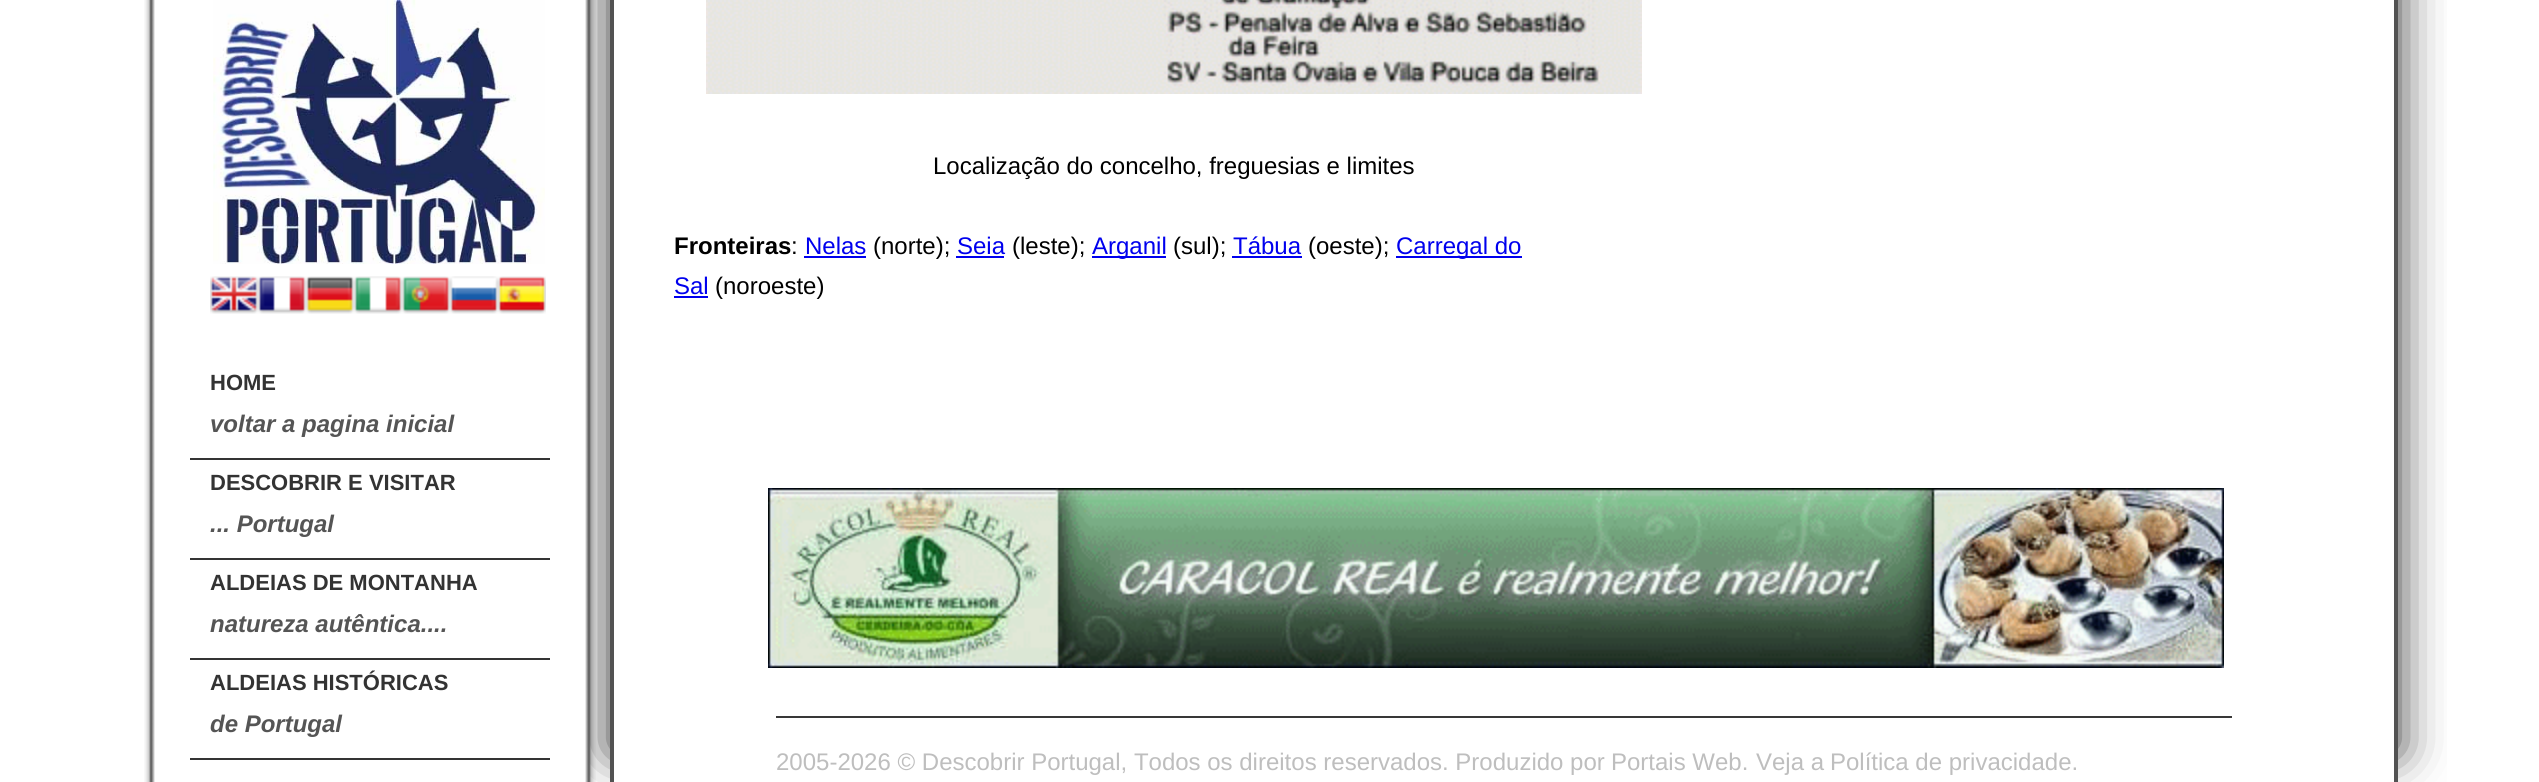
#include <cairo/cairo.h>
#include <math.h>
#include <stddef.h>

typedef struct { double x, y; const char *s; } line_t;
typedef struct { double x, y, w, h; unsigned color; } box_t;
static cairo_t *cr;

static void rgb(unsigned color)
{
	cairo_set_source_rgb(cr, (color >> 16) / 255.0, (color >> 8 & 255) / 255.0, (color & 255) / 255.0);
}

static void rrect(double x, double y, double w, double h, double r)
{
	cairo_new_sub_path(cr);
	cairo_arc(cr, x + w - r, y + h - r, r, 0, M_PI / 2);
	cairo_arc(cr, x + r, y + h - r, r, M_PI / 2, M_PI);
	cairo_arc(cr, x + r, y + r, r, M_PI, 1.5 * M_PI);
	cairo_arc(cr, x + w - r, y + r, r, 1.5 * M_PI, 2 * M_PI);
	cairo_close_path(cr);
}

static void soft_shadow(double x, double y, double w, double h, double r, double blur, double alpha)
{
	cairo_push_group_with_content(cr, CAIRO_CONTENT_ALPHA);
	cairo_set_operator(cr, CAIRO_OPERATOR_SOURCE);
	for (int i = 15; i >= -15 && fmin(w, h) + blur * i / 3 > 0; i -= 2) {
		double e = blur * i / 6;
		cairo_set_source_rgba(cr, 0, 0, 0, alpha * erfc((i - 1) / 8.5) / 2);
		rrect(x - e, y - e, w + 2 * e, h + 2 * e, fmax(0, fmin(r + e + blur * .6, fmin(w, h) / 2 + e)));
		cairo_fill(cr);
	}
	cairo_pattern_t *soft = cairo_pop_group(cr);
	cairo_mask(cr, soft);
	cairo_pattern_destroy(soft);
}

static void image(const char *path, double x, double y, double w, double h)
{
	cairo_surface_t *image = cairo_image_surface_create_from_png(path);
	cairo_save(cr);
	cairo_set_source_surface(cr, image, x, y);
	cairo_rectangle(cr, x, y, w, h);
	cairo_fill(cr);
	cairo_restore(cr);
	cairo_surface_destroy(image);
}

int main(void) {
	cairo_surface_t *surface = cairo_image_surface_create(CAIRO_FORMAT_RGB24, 2539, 782);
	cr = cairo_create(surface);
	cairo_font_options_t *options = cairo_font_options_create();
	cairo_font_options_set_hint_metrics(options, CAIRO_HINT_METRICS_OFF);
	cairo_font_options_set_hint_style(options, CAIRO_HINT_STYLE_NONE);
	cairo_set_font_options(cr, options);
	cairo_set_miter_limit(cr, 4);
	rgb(0xffffff);
	cairo_paint(cr);
	cairo_save(cr);
	cairo_rectangle(cr, 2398, 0, 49, 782);
	cairo_clip(cr);
	rgb(0x000000);
	soft_shadow(670, -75, 1728, 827, 0, 25, 0.8);
	cairo_restore(cr);
	cairo_save(cr);
	cairo_rectangle(cr, 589, 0, 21, 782);
	cairo_clip(cr);
	rgb(0x000000);
	soft_shadow(610, -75, 1728, 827, 0, 25, 0.8);
	cairo_restore(cr);
	image("img/1.png", 144, 0, 452, 782);
	image("img/2.png", 213, 0, 332, 264);
	image("img/3.png", 210, 276, 48, 38);
	image("img/4.png", 258, 276, 48, 38);
	image("img/5.png", 306, 276, 48, 38);
	image("img/6.png", 354, 276, 48, 38);
	image("img/7.png", 402, 276, 48, 38);
	image("img/8.png", 450, 276, 48, 38);
	image("img/9.png", 498, 276, 48, 38);
	{
		static const box_t items[] = {
			{190, 458, 360, 2, 0x343434},
			{190, 558, 360, 2, 0x343434},
			{190, 658, 360, 2, 0x343434},
			{190, 758, 360, 2, 0x343434},
			{2394, 0, 4, 782, 0x525252},
			{610, 0, 4, 782, 0x525252},
		};
		for (size_t i = 0; i < sizeof items / sizeof *items; i++) {
			rgb(items[i].color);
			cairo_rectangle(cr, items[i].x, items[i].y, items[i].w, items[i].h);
			cairo_fill(cr);
		}
	}
	image("img/10.png", 706, 0, 936, 94);
	{
		static const box_t items[] = {
			{804, 256, 62, 2, 0x0000ee},
			{956, 256, 48, 2, 0x0000ee},
			{1092, 256, 74, 2, 0x0000ee},
			{1232, 256, 70, 2, 0x0000ee},
			{1396, 256, 126, 2, 0x0000ee},
			{674, 296, 34, 2, 0x0000ee},
		};
		for (size_t i = 0; i < sizeof items / sizeof *items; i++) {
			rgb(items[i].color);
			cairo_rectangle(cr, items[i].x, items[i].y, items[i].w, items[i].h);
			cairo_fill(cr);
		}
	}
	image("img/11.png", 768, 488, 1456, 180);
	rgb(0x383838);
	cairo_rectangle(cr, 776, 716, 1456, 2);
	cairo_fill(cr);
	cairo_select_font_face(cr, "Liberation Sans", CAIRO_FONT_SLANT_NORMAL, CAIRO_FONT_WEIGHT_BOLD);
	cairo_set_font_size(cr, 22);
	rgb(0x333333);
	cairo_move_to(cr, 210, 390);
	cairo_show_text(cr, "HOME");
	cairo_select_font_face(cr, "Liberation Sans", CAIRO_FONT_SLANT_ITALIC, CAIRO_FONT_WEIGHT_BOLD);
	cairo_set_font_size(cr, 24);
	rgb(0x555555);
	cairo_move_to(cr, 210, 432);
	cairo_show_text(cr, "voltar a pagina inicial");
	cairo_select_font_face(cr, "Liberation Sans", CAIRO_FONT_SLANT_NORMAL, CAIRO_FONT_WEIGHT_BOLD);
	cairo_set_font_size(cr, 22);
	rgb(0x333333);
	cairo_move_to(cr, 210, 490);
	cairo_show_text(cr, "DESCOBRIR E VISITAR");
	cairo_select_font_face(cr, "Liberation Sans", CAIRO_FONT_SLANT_ITALIC, CAIRO_FONT_WEIGHT_BOLD);
	cairo_set_font_size(cr, 24);
	rgb(0x555555);
	cairo_move_to(cr, 210, 532);
	cairo_show_text(cr, "... Portugal");
	cairo_select_font_face(cr, "Liberation Sans", CAIRO_FONT_SLANT_NORMAL, CAIRO_FONT_WEIGHT_BOLD);
	cairo_set_font_size(cr, 22);
	rgb(0x333333);
	cairo_move_to(cr, 210, 590);
	cairo_show_text(cr, "ALDEIAS DE MONTANHA");
	cairo_select_font_face(cr, "Liberation Sans", CAIRO_FONT_SLANT_ITALIC, CAIRO_FONT_WEIGHT_BOLD);
	cairo_set_font_size(cr, 24);
	rgb(0x555555);
	cairo_move_to(cr, 210, 632);
	cairo_show_text(cr, "natureza autêntica....");
	cairo_select_font_face(cr, "Liberation Sans", CAIRO_FONT_SLANT_NORMAL, CAIRO_FONT_WEIGHT_BOLD);
	cairo_set_font_size(cr, 22);
	rgb(0x333333);
	cairo_move_to(cr, 210, 690);
	cairo_show_text(cr, "ALDEIAS HISTÓRICAS");
	cairo_select_font_face(cr, "Liberation Sans", CAIRO_FONT_SLANT_ITALIC, CAIRO_FONT_WEIGHT_BOLD);
	cairo_set_font_size(cr, 24);
	rgb(0x555555);
	cairo_move_to(cr, 210, 732);
	cairo_show_text(cr, "de Portugal");
	cairo_select_font_face(cr, "Liberation Sans", CAIRO_FONT_SLANT_NORMAL, CAIRO_FONT_WEIGHT_NORMAL);
	rgb(0x000000);
	cairo_move_to(cr, 933, 174);
	cairo_show_text(cr, "Localização do concelho, freguesias e limites");
	cairo_select_font_face(cr, "Liberation Sans", CAIRO_FONT_SLANT_NORMAL, CAIRO_FONT_WEIGHT_BOLD);
	cairo_move_to(cr, 674, 254);
	cairo_show_text(cr, "Fronteiras");
	cairo_select_font_face(cr, "Liberation Sans", CAIRO_FONT_SLANT_NORMAL, CAIRO_FONT_WEIGHT_NORMAL);
	cairo_move_to(cr, 791, 254);
	cairo_show_text(cr, ":");
	rgb(0x0000ee);
	cairo_move_to(cr, 805, 254);
	cairo_show_text(cr, "Nelas");
	rgb(0x000000);
	cairo_move_to(cr, 873, 254);
	cairo_show_text(cr, "(norte);");
	rgb(0x0000ee);
	cairo_move_to(cr, 957, 254);
	cairo_show_text(cr, "Seia");
	rgb(0x000000);
	cairo_move_to(cr, 1012, 254);
	cairo_show_text(cr, "(leste);");
	rgb(0x0000ee);
	cairo_move_to(cr, 1092, 254);
	cairo_show_text(cr, "Arganil");
	rgb(0x000000);
	cairo_move_to(cr, 1173, 254);
	cairo_show_text(cr, "(sul);");
	rgb(0x0000ee);
	cairo_move_to(cr, 1233, 254);
	cairo_show_text(cr, "Tábua");
	rgb(0x000000);
	cairo_move_to(cr, 1308, 254);
	cairo_show_text(cr, "(oeste);");
	rgb(0x0000ee);
	cairo_move_to(cr, 1396, 254);
	cairo_show_text(cr, "Carregal do");
	cairo_move_to(cr, 674, 294);
	cairo_show_text(cr, "Sal");
	rgb(0x000000);
	cairo_move_to(cr, 715, 294);
	cairo_show_text(cr, "(noroeste)");
	rgb(0xbebebe);
	{
		static const line_t items[] = {
			{776, 770, "2005-2026 © Descobrir Portugal, Todos os direitos reservados. Produzido por"},
			{1611, 770, "Portais Web."},
			{1756, 770, "Veja a"},
			{1830, 770, "Política de privacidade."},
		};
		for (size_t i = 0; i < sizeof items / sizeof *items; i++) {
			cairo_move_to(cr, items[i].x, items[i].y);
			cairo_show_text(cr, items[i].s);
		}
	}
	cairo_surface_write_to_png(surface, "page.png");
	cairo_font_options_destroy(options);
	cairo_destroy(cr);
	cairo_surface_destroy(surface);
	return 0;
}
